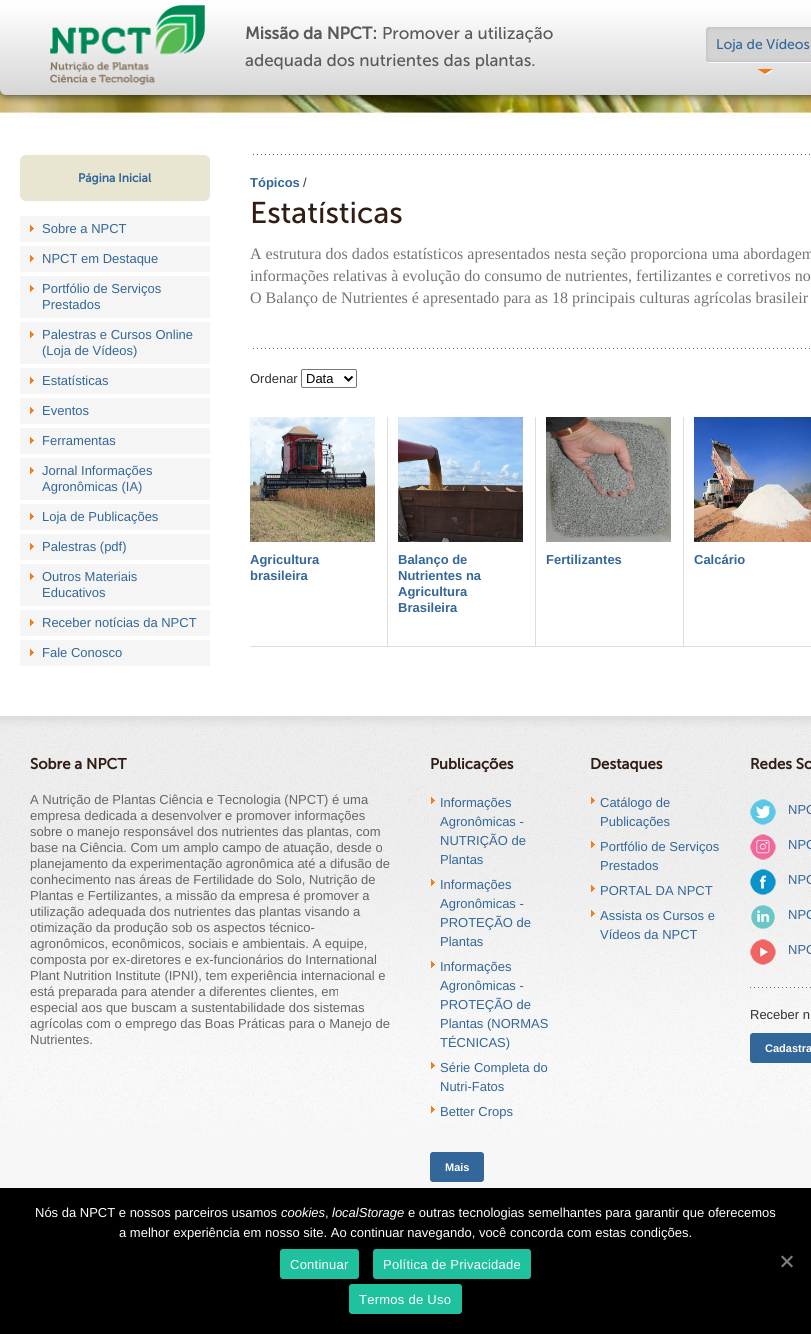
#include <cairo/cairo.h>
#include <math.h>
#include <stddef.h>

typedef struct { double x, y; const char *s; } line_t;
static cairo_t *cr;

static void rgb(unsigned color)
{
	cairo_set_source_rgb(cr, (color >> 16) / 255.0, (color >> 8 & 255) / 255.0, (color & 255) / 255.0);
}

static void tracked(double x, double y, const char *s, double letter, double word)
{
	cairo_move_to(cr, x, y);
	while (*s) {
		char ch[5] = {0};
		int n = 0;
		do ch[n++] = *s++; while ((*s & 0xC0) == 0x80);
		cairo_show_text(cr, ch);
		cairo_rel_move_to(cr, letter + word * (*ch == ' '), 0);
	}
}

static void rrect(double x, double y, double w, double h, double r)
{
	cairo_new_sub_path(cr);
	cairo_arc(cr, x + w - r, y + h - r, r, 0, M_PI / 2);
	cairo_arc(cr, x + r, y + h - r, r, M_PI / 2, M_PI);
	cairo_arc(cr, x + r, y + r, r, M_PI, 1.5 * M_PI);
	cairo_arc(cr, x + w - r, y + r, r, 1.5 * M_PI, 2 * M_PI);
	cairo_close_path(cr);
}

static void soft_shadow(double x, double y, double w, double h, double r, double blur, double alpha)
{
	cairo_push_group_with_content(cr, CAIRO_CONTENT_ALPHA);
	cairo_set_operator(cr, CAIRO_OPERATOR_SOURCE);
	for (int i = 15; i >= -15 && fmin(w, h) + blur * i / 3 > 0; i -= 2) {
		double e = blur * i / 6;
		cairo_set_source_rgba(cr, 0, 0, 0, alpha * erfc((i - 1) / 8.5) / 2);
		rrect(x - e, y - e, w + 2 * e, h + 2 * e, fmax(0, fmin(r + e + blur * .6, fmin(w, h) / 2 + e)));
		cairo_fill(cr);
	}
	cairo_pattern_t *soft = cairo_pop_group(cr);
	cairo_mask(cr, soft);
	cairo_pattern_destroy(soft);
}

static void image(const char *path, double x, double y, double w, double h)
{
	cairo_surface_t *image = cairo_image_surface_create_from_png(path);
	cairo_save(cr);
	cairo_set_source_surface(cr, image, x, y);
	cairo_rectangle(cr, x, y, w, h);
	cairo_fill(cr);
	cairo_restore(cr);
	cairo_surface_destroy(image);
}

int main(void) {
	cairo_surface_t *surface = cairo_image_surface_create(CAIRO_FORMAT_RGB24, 811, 1334);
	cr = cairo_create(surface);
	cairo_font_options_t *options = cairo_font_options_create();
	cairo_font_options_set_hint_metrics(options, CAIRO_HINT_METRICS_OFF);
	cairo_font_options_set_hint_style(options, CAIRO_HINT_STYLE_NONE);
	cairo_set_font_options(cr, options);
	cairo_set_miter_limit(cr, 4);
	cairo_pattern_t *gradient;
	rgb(0xffffff);
	cairo_paint(cr);
	image("img/1.png", 0, 0, 811, 119);
	rgb(0x000000);
	soft_shadow(0, -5, 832, 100, 6, 5, 0.8);
	gradient = cairo_pattern_create_linear(0, -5, 0, 95);
	cairo_pattern_add_color_stop_rgba(gradient, 0.11, 0.996, 0.996, 0.996, 1);
	cairo_pattern_add_color_stop_rgba(gradient, 1, 0.839, 0.839, 0.839, 1);
	cairo_set_source(cr, gradient);
	cairo_pattern_destroy(gradient);
	rrect(0, -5, 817, 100, 6);
	cairo_fill(cr);
	image("img/2.png", 50, 5, 155, 80);
	image("img/3.png", 706, 27, 10, 36);
	image("img/4.png", 716, 27, 95, 36);
	image("img/5.png", 757, 69, 16, 6);
	image("img/6.png", 253, 154, 557, 1);
	rgb(0xe8e5d0);
	rrect(20, 155, 190, 46, 6);
	cairo_fill(cr);
	rgb(0xf5f5f5);
	cairo_rectangle(cr, 20, 216, 190, 26);
	cairo_fill(cr);
	image("img/7.png", 30, 225, 4, 7);
	cairo_rectangle(cr, 20, 246, 190, 26);
	cairo_fill(cr);
	image("img/7.png", 30, 255, 4, 7);
	cairo_rectangle(cr, 20, 276, 190, 42);
	cairo_fill(cr);
	image("img/7.png", 30, 285, 4, 7);
	cairo_rectangle(cr, 20, 322, 190, 42);
	cairo_fill(cr);
	image("img/7.png", 30, 331, 4, 7);
	cairo_rectangle(cr, 20, 368, 190, 26);
	cairo_fill(cr);
	image("img/7.png", 30, 377, 4, 7);
	cairo_rectangle(cr, 20, 398, 190, 26);
	cairo_fill(cr);
	image("img/7.png", 30, 407, 4, 7);
	cairo_rectangle(cr, 20, 428, 190, 26);
	cairo_fill(cr);
	image("img/7.png", 30, 437, 4, 7);
	cairo_rectangle(cr, 20, 458, 190, 42);
	cairo_fill(cr);
	image("img/7.png", 30, 467, 4, 7);
	cairo_rectangle(cr, 20, 504, 190, 26);
	cairo_fill(cr);
	image("img/7.png", 30, 513, 4, 7);
	cairo_rectangle(cr, 20, 534, 190, 26);
	cairo_fill(cr);
	image("img/7.png", 30, 543, 4, 7);
	cairo_rectangle(cr, 20, 564, 190, 42);
	cairo_fill(cr);
	image("img/7.png", 30, 573, 4, 7);
	cairo_rectangle(cr, 20, 610, 190, 26);
	cairo_fill(cr);
	image("img/7.png", 30, 619, 4, 7);
	cairo_rectangle(cr, 20, 640, 190, 26);
	cairo_fill(cr);
	image("img/7.png", 30, 649, 4, 7);
	image("img/6.png", 253, 348, 557, 1);
	rrect(301.5, 369.5, 55, 18, 1.5);
	rgb(0x767676);
	cairo_set_line_width(cr, 1);
	cairo_stroke(cr);
	cairo_new_path(cr);
	cairo_move_to(cr, 344.5, 376.5);
	cairo_line_to(cr, 348.5, 380.5);
	cairo_line_to(cr, 352.5, 376.5);
	rgb(0x000000);
	cairo_set_line_width(cr, 2);
	cairo_stroke(cr);
	rgb(0xdddddd);
	cairo_rectangle(cr, 387, 417, 1, 230);
	cairo_fill(cr);
	cairo_rectangle(cr, 250, 646, 138, 1);
	cairo_fill(cr);
	image("img/8.png", 250, 417, 125, 125);
	cairo_rectangle(cr, 535, 417, 1, 230);
	cairo_fill(cr);
	cairo_rectangle(cr, 388, 646, 148, 1);
	cairo_fill(cr);
	image("img/9.png", 398, 417, 125, 125);
	cairo_rectangle(cr, 683, 417, 1, 230);
	cairo_fill(cr);
	cairo_rectangle(cr, 536, 646, 275, 1);
	cairo_fill(cr);
	image("img/10.png", 546, 417, 125, 125);
	image("img/11.png", 694, 417, 117, 125);
	rgb(0xf7f7f7);
	cairo_rectangle(cr, 0, 1136, 811, 52);
	cairo_fill(cr);
	image("img/12.png", 0, 716, 811, 420);
	image("img/13.png", 431, 797, 4, 7);
	image("img/14.png", 431, 879, 4, 7);
	image("img/15.png", 431, 961, 4, 7);
	image("img/16.png", 431, 1062, 4, 7);
	image("img/17.png", 431, 1106, 4, 7);
	rgb(0x336699);
	rrect(430, 1152, 54, 30, 3);
	cairo_fill(cr);
	image("img/18.png", 591, 797, 4, 7);
	image("img/19.png", 591, 841, 4, 7);
	image("img/20.png", 591, 885, 4, 7);
	image("img/21.png", 591, 910, 4, 7);
	image("img/22.png", 750, 799, 26, 26);
	image("img/23.png", 750, 834, 26, 26);
	image("img/24.png", 750, 869, 26, 26);
	image("img/25.png", 751, 905, 24, 24);
	image("img/26.png", 750, 939, 26, 26);
	image("img/27.png", 750, 987, 61, 1);
	rrect(750, 1033, 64, 30, 3);
	cairo_fill(cr);
	rgb(0x000000);
	cairo_rectangle(cr, 0, 1188, 811, 146);
	cairo_fill(cr);
	rgb(0x20c19e);
	rrect(280, 1249, 79, 30, 3);
	cairo_fill(cr);
	rrect(373, 1249, 158, 30, 3);
	cairo_fill(cr);
	rgb(0x808080);
	cairo_new_path(cr);
	cairo_move_to(cr, 791.5, 1255.5);
	cairo_line_to(cr, 793, 1257);
	cairo_line_to(cr, 782.5, 1267.5);
	cairo_line_to(cr, 781, 1266);
	cairo_close_path(cr);
	cairo_fill(cr);
	cairo_new_path(cr);
	cairo_move_to(cr, 781, 1257);
	cairo_line_to(cr, 782.5, 1255.5);
	cairo_line_to(cr, 793, 1266);
	cairo_line_to(cr, 791.5, 1267.5);
	cairo_close_path(cr);
	cairo_fill(cr);
	rgb(0x20c19e);
	rrect(349, 1284, 113, 30, 3);
	cairo_fill(cr);
	cairo_select_font_face(cr, "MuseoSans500", CAIRO_FONT_SLANT_NORMAL, CAIRO_FONT_WEIGHT_BOLD);
	cairo_set_font_size(cr, 17);
	rgb(0x595959);
	cairo_move_to(cr, 245, 39);
	cairo_show_text(cr, "Missão da NPCT:");
	cairo_select_font_face(cr, "MuseoSans500", CAIRO_FONT_SLANT_NORMAL, CAIRO_FONT_WEIGHT_NORMAL);
	cairo_move_to(cr, 382, 39);
	cairo_show_text(cr, "Promover a utilização");
	cairo_move_to(cr, 245, 66);
	cairo_show_text(cr, "adequada dos nutrientes das plantas.");
	cairo_set_font_size(cr, 14);
	rgb(0x336699);
	cairo_move_to(cr, 716, 49);
	cairo_show_text(cr, "Loja de Vídeos");
	cairo_select_font_face(cr, "MuseoSans500", CAIRO_FONT_SLANT_NORMAL, CAIRO_FONT_WEIGHT_BOLD);
	cairo_set_font_size(cr, 12);
	cairo_move_to(cr, 78, 182);
	cairo_show_text(cr, "Página Inicial");
	cairo_select_font_face(cr, "Liberation Sans", CAIRO_FONT_SLANT_NORMAL, CAIRO_FONT_WEIGHT_NORMAL);
	cairo_set_font_size(cr, 13);
	{
		static const line_t items[] = {
			{42, 233, "Sobre a NPCT"},
			{42, 263, "NPCT em Destaque"},
			{42, 293, "Portfólio de Serviços"},
			{42, 309, "Prestados"},
			{42, 339, "Palestras e Cursos Online"},
			{42, 355, "(Loja de Vídeos)"},
			{42, 385, "Estatísticas"},
			{42, 415, "Eventos"},
			{42, 445, "Ferramentas"},
			{42, 475, "Jornal Informações"},
			{42, 491, "Agronômicas (IA)"},
			{42, 521, "Loja de Publicações"},
			{42, 551, "Palestras (pdf)"},
			{42, 581, "Outros Materiais"},
			{42, 597, "Educativos"},
			{42, 627, "Receber notícias da NPCT"},
			{42, 657, "Fale Conosco"},
		};
		for (size_t i = 0; i < sizeof items / sizeof *items; i++) {
			cairo_move_to(cr, items[i].x, items[i].y);
			cairo_show_text(cr, items[i].s);
		}
	}
	cairo_select_font_face(cr, "Liberation Sans", CAIRO_FONT_SLANT_NORMAL, CAIRO_FONT_WEIGHT_BOLD);
	cairo_move_to(cr, 250, 187);
	cairo_show_text(cr, "Tópicos");
	cairo_select_font_face(cr, "Liberation Sans", CAIRO_FONT_SLANT_NORMAL, CAIRO_FONT_WEIGHT_NORMAL);
	rgb(0x333333);
	cairo_move_to(cr, 303, 187);
	cairo_show_text(cr, "/");
	cairo_select_font_face(cr, "MuseoSans500", CAIRO_FONT_SLANT_NORMAL, CAIRO_FONT_WEIGHT_NORMAL);
	cairo_set_font_size(cr, 30);
	rgb(0x311d13);
	cairo_move_to(cr, 250, 223);
	cairo_show_text(cr, "Estatísticas");
	cairo_select_font_face(cr, "Liberation Serif", CAIRO_FONT_SLANT_NORMAL, CAIRO_FONT_WEIGHT_NORMAL);
	cairo_set_font_size(cr, 16);
	rgb(0x737373);
	{
		static const line_t items[] = {
			{250, 259, "A estrutura dos dados estatísticos apresentados nesta seção proporciona uma abordagem"},
			{250, 281, "informações relativas à evolução do consumo de nutrientes, fertilizantes e corretivos no"},
			{250, 303, "O Balanço de Nutrientes é apresentado para as 18 principais culturas agrícolas brasileir"},
		};
		for (size_t i = 0; i < sizeof items / sizeof *items; i++) {
			cairo_move_to(cr, items[i].x, items[i].y);
			cairo_show_text(cr, items[i].s);
		}
	}
	cairo_select_font_face(cr, "Liberation Sans", CAIRO_FONT_SLANT_NORMAL, CAIRO_FONT_WEIGHT_NORMAL);
	cairo_set_font_size(cr, 13);
	rgb(0x333333);
	cairo_move_to(cr, 250, 383);
	cairo_show_text(cr, "Ordenar");
	rgb(0x000000);
	cairo_move_to(cr, 306, 383);
	cairo_show_text(cr, "Data");
	cairo_select_font_face(cr, "Liberation Sans", CAIRO_FONT_SLANT_NORMAL, CAIRO_FONT_WEIGHT_BOLD);
	rgb(0x336699);
	{
		static const line_t items[] = {
			{250, 564, "Agricultura"},
			{250, 580, "brasileira"},
			{398, 564, "Balanço de"},
			{398, 580, "Nutrientes na"},
			{398, 596, "Agricultura"},
			{398, 612, "Brasileira"},
			{546, 564, "Fertilizantes"},
			{694, 564, "Calcário"},
		};
		for (size_t i = 0; i < sizeof items / sizeof *items; i++) {
			cairo_move_to(cr, items[i].x, items[i].y);
			cairo_show_text(cr, items[i].s);
		}
	}
	cairo_select_font_face(cr, "MuseoSans500", CAIRO_FONT_SLANT_NORMAL, CAIRO_FONT_WEIGHT_BOLD);
	cairo_set_font_size(cr, 15);
	rgb(0x311d13);
	cairo_move_to(cr, 30, 769);
	cairo_show_text(cr, "Sobre a NPCT");
	cairo_select_font_face(cr, "Liberation Sans", CAIRO_FONT_SLANT_NORMAL, CAIRO_FONT_WEIGHT_NORMAL);
	cairo_set_font_size(cr, 13);
	rgb(0x666666);
	{
		static const line_t items[] = {
			{30, 804, "A Nutrição de Plantas Ciência e Tecnologia (NPCT) é uma"},
			{30, 820, "empresa dedicada a desenvolver e promover informações"},
			{30, 836, "sobre o manejo responsável dos nutrientes das plantas, com"},
			{30, 852, "base na Ciência. Com um amplo campo de atuação, desde o"},
			{30, 868, "planejamento da experimentação agronômica até a difusão de"},
			{30, 884, "conhecimento nas áreas de Fertilidade do Solo, Nutrição de"},
			{30, 900, "Plantas e Fertilizantes, a missão da empresa é promover a"},
			{30, 916, "utilização adequada dos nutrientes das plantas visando a"},
			{30, 932, "otimização da produção sob os aspectos técnico-"},
			{30, 948, "agronômicos, econômicos, sociais e ambientais. A equipe,"},
			{30, 964, "composta por ex-diretores e ex-funcionários do International"},
			{30, 980, "Plant Nutrition Institute (IPNI), tem experiência internacional e"},
			{30, 996, "está preparada para atender a diferentes clientes, em"},
			{30, 1012, "especial aos que buscam a sustentabilidade dos sistemas"},
			{30, 1028, "agrícolas com o emprego das Boas Práticas para o Manejo de"},
			{30, 1044, "Nutrientes."},
		};
		for (size_t i = 0; i < sizeof items / sizeof *items; i++) {
			cairo_move_to(cr, items[i].x, items[i].y);
			cairo_show_text(cr, items[i].s);
		}
	}
	cairo_select_font_face(cr, "MuseoSans500", CAIRO_FONT_SLANT_NORMAL, CAIRO_FONT_WEIGHT_BOLD);
	cairo_set_font_size(cr, 15);
	rgb(0x311d13);
	cairo_move_to(cr, 430, 769);
	cairo_show_text(cr, "Publicações");
	cairo_select_font_face(cr, "Liberation Sans", CAIRO_FONT_SLANT_NORMAL, CAIRO_FONT_WEIGHT_NORMAL);
	cairo_set_font_size(cr, 13);
	rgb(0x336699);
	{
		static const line_t items[] = {
			{440, 807, "Informações"},
			{440, 826, "Agronômicas -"},
			{440, 845, "NUTRIÇÃO de"},
			{440, 864, "Plantas"},
			{440, 889, "Informações"},
			{440, 908, "Agronômicas -"},
			{440, 927, "PROTEÇÃO de"},
			{440, 946, "Plantas"},
			{440, 971, "Informações"},
			{440, 990, "Agronômicas -"},
			{440, 1009, "PROTEÇÃO de"},
			{440, 1028, "Plantas (NORMAS"},
			{440, 1047, "TÉCNICAS)"},
			{440, 1072, "Série Completa do"},
			{440, 1091, "Nutri-Fatos"},
			{440, 1116, "Better Crops"},
		};
		for (size_t i = 0; i < sizeof items / sizeof *items; i++) {
			cairo_move_to(cr, items[i].x, items[i].y);
			cairo_show_text(cr, items[i].s);
		}
	}
	cairo_select_font_face(cr, "Liberation Sans", CAIRO_FONT_SLANT_NORMAL, CAIRO_FONT_WEIGHT_BOLD);
	cairo_set_font_size(cr, 11);
	rgb(0xffffff);
	cairo_move_to(cr, 445, 1171);
	cairo_show_text(cr, "Mais");
	cairo_select_font_face(cr, "MuseoSans500", CAIRO_FONT_SLANT_NORMAL, CAIRO_FONT_WEIGHT_BOLD);
	cairo_set_font_size(cr, 15);
	rgb(0x311d13);
	cairo_move_to(cr, 590, 769);
	cairo_show_text(cr, "Destaques");
	cairo_select_font_face(cr, "Liberation Sans", CAIRO_FONT_SLANT_NORMAL, CAIRO_FONT_WEIGHT_NORMAL);
	cairo_set_font_size(cr, 13);
	rgb(0x336699);
	{
		static const line_t items[] = {
			{600, 807, "Catálogo de"},
			{600, 826, "Publicações"},
			{600, 851, "Portfólio de Serviços"},
			{600, 870, "Prestados"},
			{600, 895, "PORTAL DA NPCT"},
			{600, 920, "Assista os Cursos e"},
			{600, 939, "Vídeos da NPCT"},
		};
		for (size_t i = 0; i < sizeof items / sizeof *items; i++) {
			cairo_move_to(cr, items[i].x, items[i].y);
			cairo_show_text(cr, items[i].s);
		}
	}
	cairo_select_font_face(cr, "MuseoSans500", CAIRO_FONT_SLANT_NORMAL, CAIRO_FONT_WEIGHT_BOLD);
	cairo_set_font_size(cr, 15);
	rgb(0x311d13);
	cairo_move_to(cr, 750, 769);
	cairo_show_text(cr, "Redes So");
	cairo_select_font_face(cr, "Liberation Sans", CAIRO_FONT_SLANT_NORMAL, CAIRO_FONT_WEIGHT_NORMAL);
	cairo_set_font_size(cr, 13);
	rgb(0x336699);
	{
		static const line_t items[] = {
			{788, 814, "NPC"},
			{788, 849, "NPC"},
			{788, 884, "NPC"},
			{788, 919, "NPC"},
			{788, 954, "NPC"},
		};
		for (size_t i = 0; i < sizeof items / sizeof *items; i++) {
			cairo_move_to(cr, items[i].x, items[i].y);
			cairo_show_text(cr, items[i].s);
		}
	}
	rgb(0x333333);
	cairo_move_to(cr, 750, 1019);
	cairo_show_text(cr, "Receber n");
	cairo_select_font_face(cr, "Liberation Sans", CAIRO_FONT_SLANT_NORMAL, CAIRO_FONT_WEIGHT_BOLD);
	cairo_set_font_size(cr, 11);
	rgb(0xffffff);
	cairo_move_to(cr, 765, 1052);
	cairo_show_text(cr, "Cadastra");
	cairo_select_font_face(cr, "Liberation Sans", CAIRO_FONT_SLANT_NORMAL, CAIRO_FONT_WEIGHT_NORMAL);
	cairo_set_font_size(cr, 13);
	cairo_move_to(cr, 35, 1217);
	cairo_show_text(cr, "Nós da NPCT e nossos parceiros usamos");
	cairo_select_font_face(cr, "Liberation Sans", CAIRO_FONT_SLANT_ITALIC, CAIRO_FONT_WEIGHT_NORMAL);
	cairo_move_to(cr, 281, 1217);
	cairo_show_text(cr, "cookies");
	cairo_select_font_face(cr, "Liberation Sans", CAIRO_FONT_SLANT_NORMAL, CAIRO_FONT_WEIGHT_NORMAL);
	cairo_move_to(cr, 325, 1217);
	cairo_show_text(cr, ",");
	cairo_select_font_face(cr, "Liberation Sans", CAIRO_FONT_SLANT_ITALIC, CAIRO_FONT_WEIGHT_NORMAL);
	cairo_move_to(cr, 332, 1217);
	cairo_show_text(cr, "localStorage");
	cairo_select_font_face(cr, "Liberation Sans", CAIRO_FONT_SLANT_NORMAL, CAIRO_FONT_WEIGHT_NORMAL);
	cairo_move_to(cr, 408, 1217);
	cairo_show_text(cr, "e outras tecnologias semelhantes para garantir que oferecemos");
	cairo_move_to(cr, 119, 1237);
	cairo_show_text(cr, "a melhor experiência em nosso site. Ao continuar navegando, você concorda com estas condições.");
	{
		static const line_t items[] = {
			{290, 1269, "Continuar"},
			{383, 1269, "Política de Privacidade"},
			{359, 1304, "Termos de Uso"},
		};
		for (size_t i = 0; i < sizeof items / sizeof *items; i++) {
			tracked(items[i].x, items[i].y, items[i].s, 0.25, 0);
		}
	}
	cairo_surface_write_to_png(surface, "page.png");
	cairo_font_options_destroy(options);
	cairo_destroy(cr);
	cairo_surface_destroy(surface);
	return 0;
}
